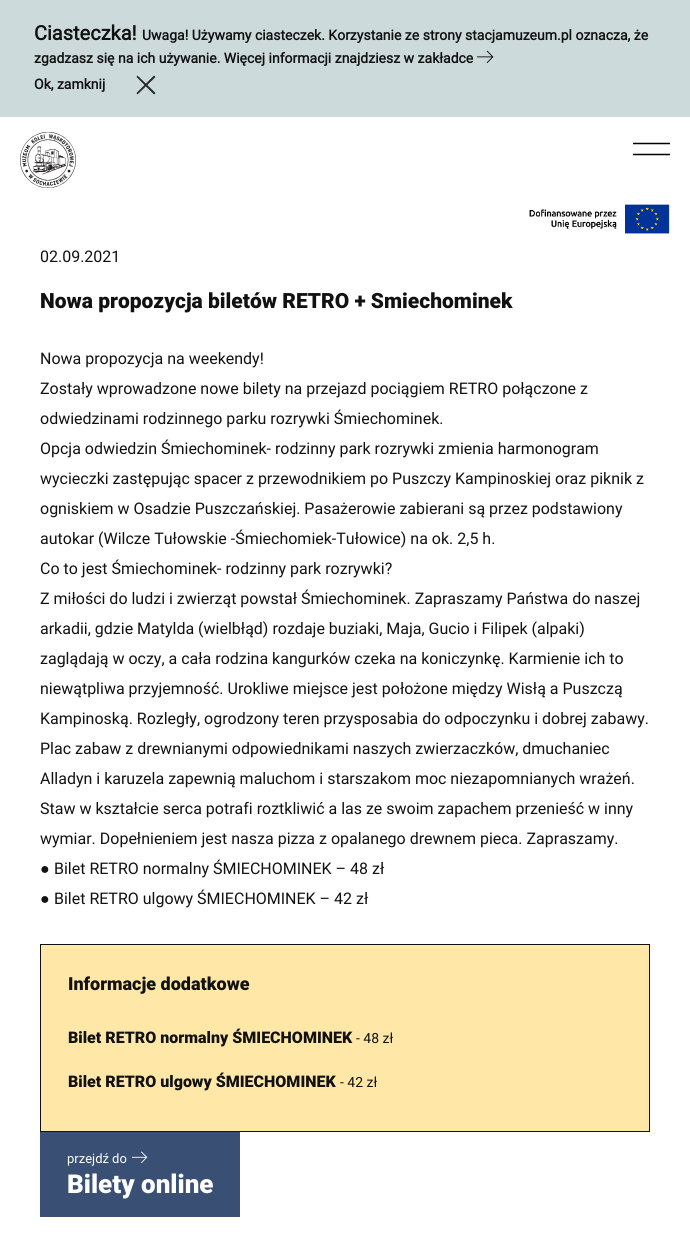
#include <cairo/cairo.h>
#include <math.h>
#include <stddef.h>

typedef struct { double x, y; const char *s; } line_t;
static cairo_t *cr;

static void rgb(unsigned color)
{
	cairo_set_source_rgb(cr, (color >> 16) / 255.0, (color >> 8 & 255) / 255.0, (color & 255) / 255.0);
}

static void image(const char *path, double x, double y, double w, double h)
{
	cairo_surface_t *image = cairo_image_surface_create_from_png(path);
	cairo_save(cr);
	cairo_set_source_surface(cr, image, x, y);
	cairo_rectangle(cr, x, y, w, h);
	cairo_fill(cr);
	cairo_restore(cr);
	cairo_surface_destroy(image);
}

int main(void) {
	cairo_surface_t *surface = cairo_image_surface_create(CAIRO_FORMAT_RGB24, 690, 1238);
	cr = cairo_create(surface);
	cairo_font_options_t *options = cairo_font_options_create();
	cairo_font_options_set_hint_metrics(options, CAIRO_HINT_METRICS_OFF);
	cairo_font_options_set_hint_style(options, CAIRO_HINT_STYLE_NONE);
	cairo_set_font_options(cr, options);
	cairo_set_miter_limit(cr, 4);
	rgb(0xffffff);
	cairo_paint(cr);
	rgb(0xcddadc);
	cairo_rectangle(cr, 0, 0, 690, 117);
	cairo_fill(cr);
	image("img/1.png", 477, 50, 17, 14);
	rgb(0x282828);
	cairo_new_path(cr);
	cairo_move_to(cr, 136.5, 93);
	cairo_line_to(cr, 154, 75.5);
	cairo_line_to(cr, 155.5, 77);
	cairo_line_to(cr, 137.5, 94.5);
	cairo_close_path(cr);
	cairo_fill(cr);
	cairo_new_path(cr);
	cairo_move_to(cr, 137.5, 75.5);
	cairo_line_to(cr, 155.5, 93);
	cairo_line_to(cr, 154, 94.5);
	cairo_line_to(cr, 136.5, 77);
	cairo_close_path(cr);
	cairo_fill(cr);
	image("img/2.png", 20, 132, 56, 56);
	cairo_new_path(cr);
	cairo_move_to(cr, 633, 143.5);
	cairo_line_to(cr, 670, 143.5);
	cairo_move_to(cr, 633, 154.5);
	cairo_line_to(cr, 670, 154.5);
	rgb(0x000000);
	cairo_set_line_width(cr, 1.5);
	cairo_stroke(cr);
	image("img/3.png", 529, 204, 141, 30);
	rgb(0xffe8a7);
	cairo_rectangle(cr, 40.5, 944.5, 609, 187);
	cairo_fill_preserve(cr);
	rgb(0x111111);
	cairo_set_line_width(cr, 1);
	cairo_stroke(cr);
	rgb(0x394f73);
	cairo_rectangle(cr, 40, 1132, 200, 85);
	cairo_fill(cr);
	image("img/4.png", 132, 1151, 16, 12);
	cairo_select_font_face(cr, "Roboto", CAIRO_FONT_SLANT_NORMAL, CAIRO_FONT_WEIGHT_BOLD);
	cairo_set_font_size(cr, 20);
	rgb(0x111111);
	cairo_move_to(cr, 34, 40);
	cairo_show_text(cr, "Ciasteczka!");
	cairo_set_font_size(cr, 14);
	{
		static const line_t items[] = {
			{142, 40, "Uwaga! Używamy ciasteczek. Korzystanie ze strony stacjamuzeum.pl oznacza, że"},
			{34, 63, "zgadzasz się na ich używanie. Więcej informacji znajdziesz w zakładce"},
			{34, 89, "Ok, zamknij"},
		};
		for (size_t i = 0; i < sizeof items / sizeof *items; i++) {
			cairo_move_to(cr, items[i].x, items[i].y);
			cairo_show_text(cr, items[i].s);
		}
	}
	cairo_select_font_face(cr, "Roboto", CAIRO_FONT_SLANT_NORMAL, CAIRO_FONT_WEIGHT_NORMAL);
	cairo_set_font_size(cr, 16);
	cairo_move_to(cr, 40, 262);
	cairo_show_text(cr, "02.09.2021");
	cairo_select_font_face(cr, "Roboto Black", CAIRO_FONT_SLANT_NORMAL, CAIRO_FONT_WEIGHT_NORMAL);
	cairo_set_font_size(cr, 21);
	cairo_move_to(cr, 40, 308);
	cairo_show_text(cr, "Nowa propozycja biletów RETRO + Smiechominek");
	cairo_select_font_face(cr, "Roboto", CAIRO_FONT_SLANT_NORMAL, CAIRO_FONT_WEIGHT_NORMAL);
	cairo_set_font_size(cr, 16);
	{
		static const line_t items[] = {
			{40, 364, "Nowa propozycja na weekendy!"},
			{40, 394, "Zostały wprowadzone nowe bilety na przejazd pociągiem RETRO połączone z"},
			{40, 424, "odwiedzinami rodzinnego parku rozrywki Śmiechominek."},
			{40, 454, "Opcja odwiedzin Śmiechominek- rodzinny park rozrywki zmienia harmonogram"},
			{40, 484, "wycieczki zastępując spacer z przewodnikiem po Puszczy Kampinoskiej oraz piknik z"},
			{40, 514, "ogniskiem w Osadzie Puszczańskiej. Pasażerowie zabierani są przez podstawiony"},
			{40, 544, "autokar (Wilcze Tułowskie -Śmiechomiek-Tułowice) na ok. 2,5 h."},
			{40, 574, "Co to jest Śmiechominek- rodzinny park rozrywki?"},
			{40, 604, "Z miłości do ludzi i zwierząt powstał Śmiechominek. Zapraszamy Państwa do naszej"},
			{40, 634, "arkadii, gdzie Matylda (wielbłąd) rozdaje buziaki, Maja, Gucio i Filipek (alpaki)"},
			{40, 664, "zaglądają w oczy, a cała rodzina kangurków czeka na koniczynkę. Karmienie ich to"},
			{40, 694, "niewątpliwa przyjemność. Urokliwe miejsce jest położone między Wisłą a Puszczą"},
			{40, 724, "Kampinoską. Rozległy, ogrodzony teren przysposabia do odpoczynku i dobrej zabawy."},
			{40, 754, "Plac zabaw z drewnianymi odpowiednikami naszych zwierzaczków, dmuchaniec"},
			{40, 784, "Alladyn i karuzela zapewnią maluchom i starszakom moc niezapomnianych wrażeń."},
			{40, 814, "Staw w kształcie serca potrafi roztkliwić a las ze swoim zapachem przenieść w inny"},
			{40, 844, "wymiar. Dopełnieniem jest nasza pizza z opalanego drewnem pieca. Zapraszamy."},
		};
		for (size_t i = 0; i < sizeof items / sizeof *items; i++) {
			cairo_move_to(cr, items[i].x, items[i].y);
			cairo_show_text(cr, items[i].s);
		}
	}
	cairo_select_font_face(cr, "Liberation Serif", CAIRO_FONT_SLANT_NORMAL, CAIRO_FONT_WEIGHT_NORMAL);
	cairo_move_to(cr, 40, 874);
	cairo_show_text(cr, "●");
	cairo_select_font_face(cr, "Roboto", CAIRO_FONT_SLANT_NORMAL, CAIRO_FONT_WEIGHT_NORMAL);
	cairo_move_to(cr, 54, 874);
	cairo_show_text(cr, "Bilet RETRO normalny ŚMIECHOMINEK – 48 zł");
	cairo_select_font_face(cr, "Liberation Serif", CAIRO_FONT_SLANT_NORMAL, CAIRO_FONT_WEIGHT_NORMAL);
	cairo_move_to(cr, 40, 904);
	cairo_show_text(cr, "●");
	cairo_select_font_face(cr, "Roboto", CAIRO_FONT_SLANT_NORMAL, CAIRO_FONT_WEIGHT_NORMAL);
	cairo_move_to(cr, 54, 904);
	cairo_show_text(cr, "Bilet RETRO ulgowy ŚMIECHOMINEK – 42 zł");
	cairo_select_font_face(cr, "Roboto Black", CAIRO_FONT_SLANT_NORMAL, CAIRO_FONT_WEIGHT_NORMAL);
	cairo_set_font_size(cr, 18);
	cairo_move_to(cr, 68, 990);
	cairo_show_text(cr, "Informacje dodatkowe");
	cairo_set_font_size(cr, 16);
	cairo_move_to(cr, 68, 1043);
	cairo_show_text(cr, "Bilet RETRO normalny ŚMIECHOMINEK");
	cairo_select_font_face(cr, "Roboto", CAIRO_FONT_SLANT_NORMAL, CAIRO_FONT_WEIGHT_NORMAL);
	cairo_set_font_size(cr, 14);
	cairo_move_to(cr, 356, 1043);
	cairo_show_text(cr, "- 48 zł");
	cairo_select_font_face(cr, "Roboto Black", CAIRO_FONT_SLANT_NORMAL, CAIRO_FONT_WEIGHT_NORMAL);
	cairo_set_font_size(cr, 16);
	cairo_move_to(cr, 68, 1087);
	cairo_show_text(cr, "Bilet RETRO ulgowy ŚMIECHOMINEK");
	cairo_select_font_face(cr, "Roboto", CAIRO_FONT_SLANT_NORMAL, CAIRO_FONT_WEIGHT_NORMAL);
	cairo_set_font_size(cr, 14);
	cairo_move_to(cr, 340, 1087);
	cairo_show_text(cr, "- 42 zł");
	cairo_set_font_size(cr, 13);
	rgb(0xffffff);
	cairo_move_to(cr, 67, 1163);
	cairo_show_text(cr, "przejdź do");
	cairo_select_font_face(cr, "Roboto Black", CAIRO_FONT_SLANT_NORMAL, CAIRO_FONT_WEIGHT_NORMAL);
	cairo_set_font_size(cr, 26);
	cairo_move_to(cr, 67, 1193);
	cairo_show_text(cr, "Bilety online");
	cairo_surface_write_to_png(surface, "page.png");
	cairo_font_options_destroy(options);
	cairo_destroy(cr);
	cairo_surface_destroy(surface);
	return 0;
}
